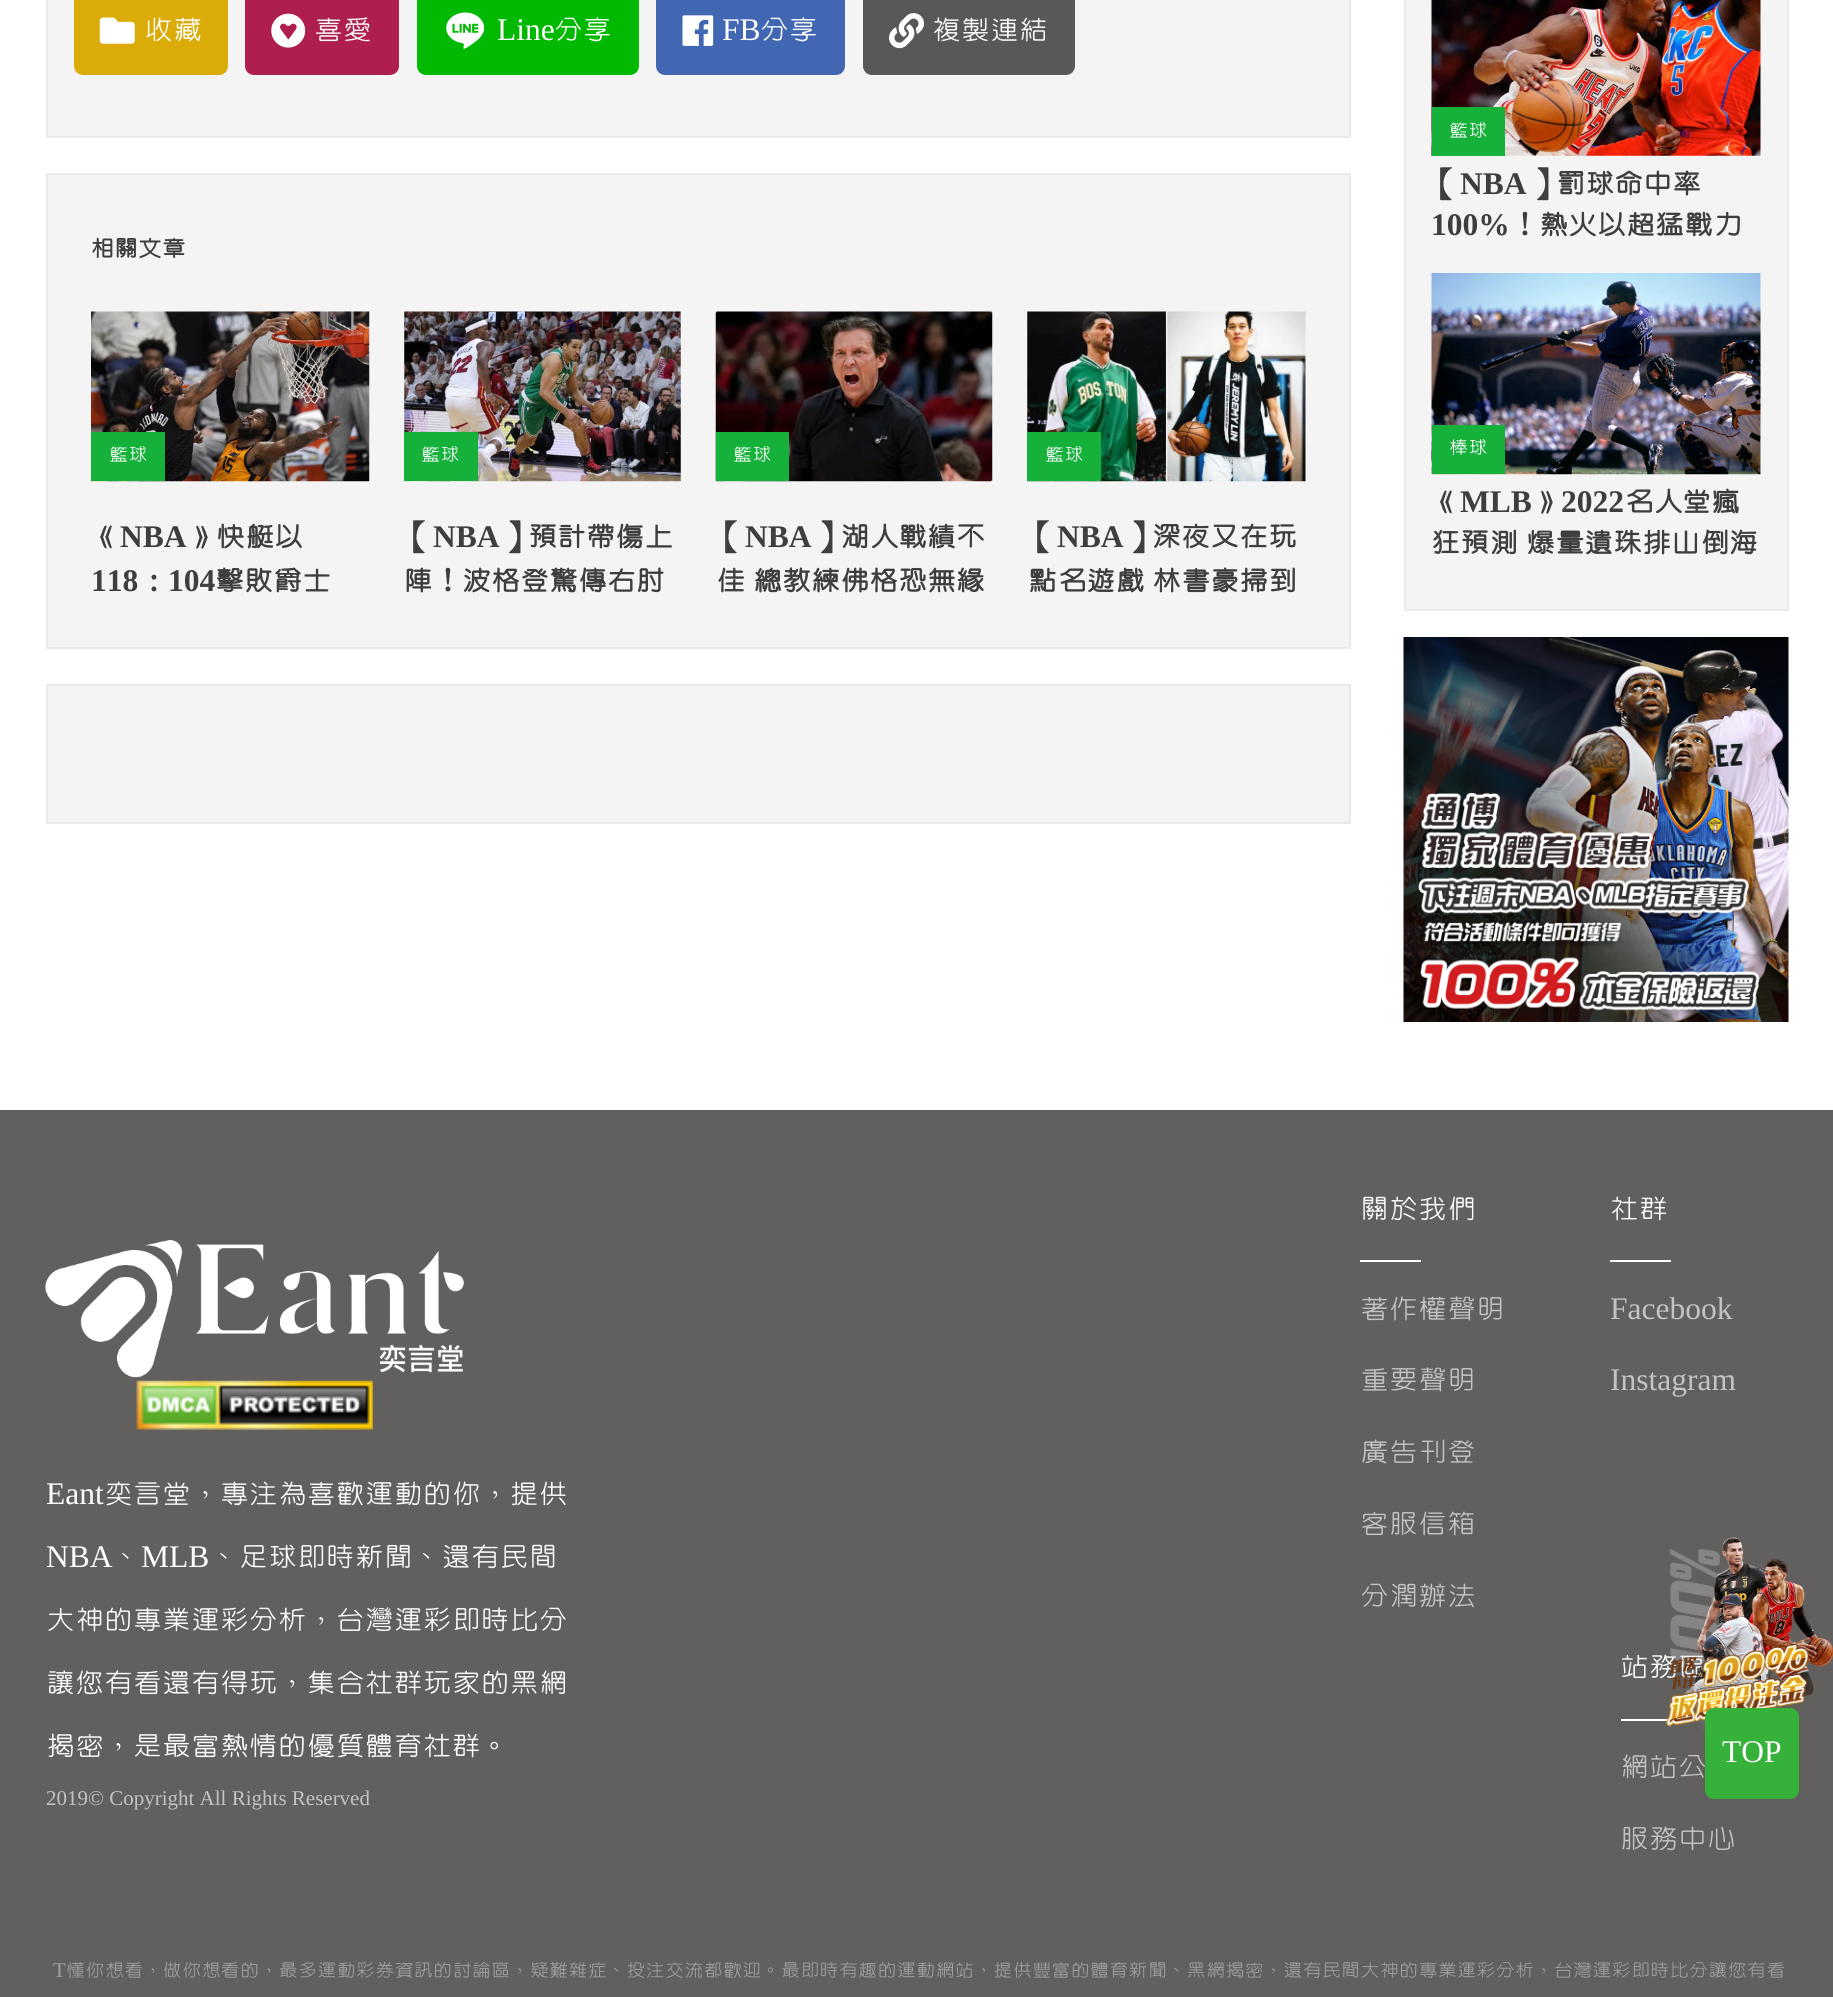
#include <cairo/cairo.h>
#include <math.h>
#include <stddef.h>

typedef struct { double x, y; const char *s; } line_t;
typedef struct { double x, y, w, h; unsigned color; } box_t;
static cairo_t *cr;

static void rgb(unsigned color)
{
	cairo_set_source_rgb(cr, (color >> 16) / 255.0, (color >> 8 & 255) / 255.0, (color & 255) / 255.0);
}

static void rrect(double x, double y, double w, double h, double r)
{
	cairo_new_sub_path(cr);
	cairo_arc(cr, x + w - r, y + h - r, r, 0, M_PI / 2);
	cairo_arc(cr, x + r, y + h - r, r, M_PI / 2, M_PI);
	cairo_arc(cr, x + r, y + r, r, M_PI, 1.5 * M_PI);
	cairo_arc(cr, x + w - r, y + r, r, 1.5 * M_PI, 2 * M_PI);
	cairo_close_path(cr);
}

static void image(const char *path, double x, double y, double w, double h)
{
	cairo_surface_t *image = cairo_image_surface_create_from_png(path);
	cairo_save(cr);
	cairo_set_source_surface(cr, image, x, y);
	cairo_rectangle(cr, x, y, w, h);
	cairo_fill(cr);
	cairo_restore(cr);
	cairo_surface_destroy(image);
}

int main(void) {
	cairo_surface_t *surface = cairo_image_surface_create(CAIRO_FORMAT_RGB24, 1833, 1997);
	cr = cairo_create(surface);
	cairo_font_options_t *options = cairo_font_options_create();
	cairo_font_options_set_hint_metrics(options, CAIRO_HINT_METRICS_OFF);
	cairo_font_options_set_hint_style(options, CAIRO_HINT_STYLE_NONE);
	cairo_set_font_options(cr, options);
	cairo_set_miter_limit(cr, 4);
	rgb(0xffffff);
	cairo_paint(cr);
	rgb(0xf4f4f4);
	cairo_rectangle(cr, 47, -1, 1303, 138);
	cairo_fill_preserve(cr);
	rgb(0xeaeaea);
	cairo_stroke(cr);
	rgb(0xdbac09);
	rrect(74, -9, 154, 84, 9);
	cairo_fill(cr);
	image("img/1.png", 99, 17, 36, 27);
	rgb(0xae1f4e);
	rrect(245, -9, 154, 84, 9);
	cairo_fill(cr);
	image("img/2.png", 271, 13, 35, 35);
	rgb(0x00b900);
	rrect(417, -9, 222, 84, 9);
	cairo_fill(cr);
	rgb(0xffffff);
	cairo_rectangle(cr, 446, 12, 39, 37);
	cairo_fill(cr);
	image("img/3.png", 443, 7, 45, 44);
	rgb(0x4267b2);
	rrect(656, -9, 189, 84, 9);
	cairo_fill(cr);
	image("img/4.png", 682, 15, 32, 31);
	rgb(0x56585a);
	rrect(863, -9, 212, 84, 9);
	cairo_fill(cr);
	image("img/5.png", 889, 13, 35, 36);
	rgb(0xf4f4f4);
	cairo_rectangle(cr, 47, 174, 1303, 474);
	cairo_fill_preserve(cr);
	rgb(0xeaeaea);
	cairo_stroke(cr);
	image("img/6.png", 91, 311, 279, 171);
	rgb(0x16b13a);
	cairo_rectangle(cr, 91, 432, 74, 49);
	cairo_fill(cr);
	image("img/7.png", 404, 311, 277, 171);
	cairo_rectangle(cr, 404, 432, 74, 49);
	cairo_fill(cr);
	image("img/8.png", 715, 311, 278, 171);
	cairo_rectangle(cr, 716, 432, 73, 49);
	cairo_fill(cr);
	image("img/9.png", 1027, 311, 279, 171);
	cairo_rectangle(cr, 1027, 432, 74, 49);
	cairo_fill(cr);
	rgb(0xf4f4f4);
	cairo_rectangle(cr, 47, 685, 1303, 138);
	cairo_fill_preserve(cr);
	rgb(0xeaeaea);
	cairo_stroke(cr);
	rgb(0xf4f4f4);
	cairo_rectangle(cr, 1405, -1, 383, 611);
	cairo_fill_preserve(cr);
	rgb(0xeaeaea);
	cairo_stroke(cr);
	image("img/10.png", 1431, 0, 330, 156);
	rgb(0x16b13a);
	cairo_rectangle(cr, 1432, 107, 73, 49);
	cairo_fill(cr);
	image("img/11.png", 1431, 273, 330, 202);
	cairo_rectangle(cr, 1432, 425, 73, 49);
	cairo_fill(cr);
	image("img/12.png", 1403, 637, 386, 385);
	rgb(0x625f5f);
	cairo_rectangle(cr, 0, 1110, 1833, 887);
	cairo_fill(cr);
	image("img/13.png", 45, 1240, 419, 138);
	image("img/14.png", 136, 1380, 237, 50);
	{
		static const box_t items[] = {
			{1360, 1260, 61, 2, 0xffffff},
			{1610, 1260, 61, 2, 0xffffff},
			{1621, 1719, 47, 2, 0xffffff},
		};
		for (size_t i = 0; i < sizeof items / sizeof *items; i++) {
			rgb(items[i].color);
			cairo_rectangle(cr, items[i].x, items[i].y, items[i].w, items[i].h);
			cairo_fill(cr);
		}
	}
	cairo_select_font_face(cr, "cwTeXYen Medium", CAIRO_FONT_SLANT_NORMAL, CAIRO_FONT_WEIGHT_NORMAL);
	cairo_set_font_size(cr, 31.5);
	cairo_move_to(cr, 144, 40);
	cairo_show_text(cr, "收藏");
	cairo_move_to(cr, 314, 40);
	cairo_show_text(cr, "喜愛");
	cairo_select_font_face(cr, "Liberation Serif", CAIRO_FONT_SLANT_NORMAL, CAIRO_FONT_WEIGHT_NORMAL);
	cairo_move_to(cr, 497, 40);
	cairo_show_text(cr, "Line");
	cairo_select_font_face(cr, "cwTeXYen Medium", CAIRO_FONT_SLANT_NORMAL, CAIRO_FONT_WEIGHT_NORMAL);
	cairo_move_to(cr, 554, 40);
	cairo_show_text(cr, "分享");
	cairo_select_font_face(cr, "Liberation Serif", CAIRO_FONT_SLANT_NORMAL, CAIRO_FONT_WEIGHT_NORMAL);
	cairo_move_to(cr, 722, 40);
	cairo_show_text(cr, "FB");
	cairo_select_font_face(cr, "cwTeXYen Medium", CAIRO_FONT_SLANT_NORMAL, CAIRO_FONT_WEIGHT_NORMAL);
	cairo_move_to(cr, 760, 40);
	cairo_show_text(cr, "分享");
	cairo_move_to(cr, 932, 40);
	cairo_show_text(cr, "複製連結");
	cairo_select_font_face(cr, "cwTeXYen", CAIRO_FONT_SLANT_NORMAL, CAIRO_FONT_WEIGHT_BOLD);
	cairo_set_font_size(cr, 26);
	rgb(0x3e3e3e);
	cairo_move_to(cr, 90, 257);
	cairo_show_text(cr, "相關文章");
	cairo_select_font_face(cr, "cwTeXYen Medium", CAIRO_FONT_SLANT_NORMAL, CAIRO_FONT_WEIGHT_NORMAL);
	cairo_set_font_size(cr, 21);
	rgb(0xffffff);
	cairo_move_to(cr, 109, 461);
	cairo_show_text(cr, "籃球");
	cairo_select_font_face(cr, "cwTeXYen", CAIRO_FONT_SLANT_NORMAL, CAIRO_FONT_WEIGHT_BOLD);
	cairo_set_font_size(cr, 31.5);
	rgb(0x3e3e3e);
	cairo_move_to(cr, 91, 547);
	cairo_show_text(cr, "《");
	cairo_select_font_face(cr, "Liberation Serif", CAIRO_FONT_SLANT_NORMAL, CAIRO_FONT_WEIGHT_BOLD);
	cairo_move_to(cr, 120, 547);
	cairo_show_text(cr, "NBA");
	cairo_select_font_face(cr, "cwTeXYen", CAIRO_FONT_SLANT_NORMAL, CAIRO_FONT_WEIGHT_BOLD);
	cairo_move_to(cr, 187, 547);
	cairo_show_text(cr, "》快艇以");
	cairo_select_font_face(cr, "Liberation Serif", CAIRO_FONT_SLANT_NORMAL, CAIRO_FONT_WEIGHT_BOLD);
	cairo_move_to(cr, 91, 591);
	cairo_show_text(cr, "118");
	cairo_select_font_face(cr, "cwTeXYen", CAIRO_FONT_SLANT_NORMAL, CAIRO_FONT_WEIGHT_BOLD);
	cairo_move_to(cr, 139, 591);
	cairo_show_text(cr, "：");
	cairo_select_font_face(cr, "Liberation Serif", CAIRO_FONT_SLANT_NORMAL, CAIRO_FONT_WEIGHT_BOLD);
	cairo_move_to(cr, 168, 591);
	cairo_show_text(cr, "104");
	cairo_select_font_face(cr, "cwTeXYen", CAIRO_FONT_SLANT_NORMAL, CAIRO_FONT_WEIGHT_BOLD);
	cairo_move_to(cr, 215, 591);
	cairo_show_text(cr, "擊敗爵士");
	cairo_select_font_face(cr, "cwTeXYen Medium", CAIRO_FONT_SLANT_NORMAL, CAIRO_FONT_WEIGHT_NORMAL);
	cairo_set_font_size(cr, 21);
	rgb(0xffffff);
	cairo_move_to(cr, 421, 461);
	cairo_show_text(cr, "籃球");
	cairo_select_font_face(cr, "cwTeXYen", CAIRO_FONT_SLANT_NORMAL, CAIRO_FONT_WEIGHT_BOLD);
	cairo_set_font_size(cr, 31.5);
	rgb(0x3e3e3e);
	cairo_move_to(cr, 404, 547);
	cairo_show_text(cr, "【");
	cairo_select_font_face(cr, "Liberation Serif", CAIRO_FONT_SLANT_NORMAL, CAIRO_FONT_WEIGHT_BOLD);
	cairo_move_to(cr, 433, 547);
	cairo_show_text(cr, "NBA");
	cairo_select_font_face(cr, "cwTeXYen", CAIRO_FONT_SLANT_NORMAL, CAIRO_FONT_WEIGHT_BOLD);
	cairo_move_to(cr, 499, 547);
	cairo_show_text(cr, "】預計帶傷上");
	cairo_move_to(cr, 404, 591);
	cairo_show_text(cr, "陣！波格登驚傳右肘");
	cairo_select_font_face(cr, "cwTeXYen Medium", CAIRO_FONT_SLANT_NORMAL, CAIRO_FONT_WEIGHT_NORMAL);
	cairo_set_font_size(cr, 21);
	rgb(0xffffff);
	cairo_move_to(cr, 733, 461);
	cairo_show_text(cr, "籃球");
	cairo_select_font_face(cr, "cwTeXYen", CAIRO_FONT_SLANT_NORMAL, CAIRO_FONT_WEIGHT_BOLD);
	cairo_set_font_size(cr, 31.5);
	rgb(0x3e3e3e);
	cairo_move_to(cr, 716, 547);
	cairo_show_text(cr, "【");
	cairo_select_font_face(cr, "Liberation Serif", CAIRO_FONT_SLANT_NORMAL, CAIRO_FONT_WEIGHT_BOLD);
	cairo_move_to(cr, 745, 547);
	cairo_show_text(cr, "NBA");
	cairo_select_font_face(cr, "cwTeXYen", CAIRO_FONT_SLANT_NORMAL, CAIRO_FONT_WEIGHT_BOLD);
	{
		static const line_t items[] = {
			{811, 547, "】湖人戰績不"},
			{716, 591, "佳"},
			{753, 591, "總教練佛格恐無緣"},
		};
		for (size_t i = 0; i < sizeof items / sizeof *items; i++) {
			cairo_move_to(cr, items[i].x, items[i].y);
			cairo_show_text(cr, items[i].s);
		}
	}
	cairo_select_font_face(cr, "cwTeXYen Medium", CAIRO_FONT_SLANT_NORMAL, CAIRO_FONT_WEIGHT_NORMAL);
	cairo_set_font_size(cr, 21);
	rgb(0xffffff);
	cairo_move_to(cr, 1045, 461);
	cairo_show_text(cr, "籃球");
	cairo_select_font_face(cr, "cwTeXYen", CAIRO_FONT_SLANT_NORMAL, CAIRO_FONT_WEIGHT_BOLD);
	cairo_set_font_size(cr, 31.5);
	rgb(0x3e3e3e);
	cairo_move_to(cr, 1028, 547);
	cairo_show_text(cr, "【");
	cairo_select_font_face(cr, "Liberation Serif", CAIRO_FONT_SLANT_NORMAL, CAIRO_FONT_WEIGHT_BOLD);
	cairo_move_to(cr, 1057, 547);
	cairo_show_text(cr, "NBA");
	cairo_select_font_face(cr, "cwTeXYen", CAIRO_FONT_SLANT_NORMAL, CAIRO_FONT_WEIGHT_BOLD);
	{
		static const line_t items[] = {
			{1123, 547, "】深夜又在玩"},
			{1028, 591, "點名遊戲"},
			{1152, 591, "林書豪掃到"},
		};
		for (size_t i = 0; i < sizeof items / sizeof *items; i++) {
			cairo_move_to(cr, items[i].x, items[i].y);
			cairo_show_text(cr, items[i].s);
		}
	}
	cairo_select_font_face(cr, "cwTeXYen Medium", CAIRO_FONT_SLANT_NORMAL, CAIRO_FONT_WEIGHT_NORMAL);
	cairo_set_font_size(cr, 21);
	rgb(0xffffff);
	cairo_move_to(cr, 1449, 137);
	cairo_show_text(cr, "籃球");
	cairo_select_font_face(cr, "cwTeXYen", CAIRO_FONT_SLANT_NORMAL, CAIRO_FONT_WEIGHT_BOLD);
	cairo_set_font_size(cr, 31.5);
	rgb(0x3e3e3e);
	cairo_move_to(cr, 1431, 194);
	cairo_show_text(cr, "【");
	cairo_select_font_face(cr, "Liberation Serif", CAIRO_FONT_SLANT_NORMAL, CAIRO_FONT_WEIGHT_BOLD);
	cairo_move_to(cr, 1460, 194);
	cairo_show_text(cr, "NBA");
	cairo_select_font_face(cr, "cwTeXYen", CAIRO_FONT_SLANT_NORMAL, CAIRO_FONT_WEIGHT_BOLD);
	cairo_move_to(cr, 1527, 194);
	cairo_show_text(cr, "】罰球命中率");
	cairo_select_font_face(cr, "Liberation Serif", CAIRO_FONT_SLANT_NORMAL, CAIRO_FONT_WEIGHT_BOLD);
	cairo_move_to(cr, 1431, 235);
	cairo_show_text(cr, "100%");
	cairo_select_font_face(cr, "cwTeXYen", CAIRO_FONT_SLANT_NORMAL, CAIRO_FONT_WEIGHT_BOLD);
	cairo_move_to(cr, 1510, 235);
	cairo_show_text(cr, "！熱火以超猛戰力");
	cairo_select_font_face(cr, "cwTeXYen Medium", CAIRO_FONT_SLANT_NORMAL, CAIRO_FONT_WEIGHT_NORMAL);
	cairo_set_font_size(cr, 21);
	rgb(0xffffff);
	cairo_move_to(cr, 1449, 454);
	cairo_show_text(cr, "棒球");
	cairo_select_font_face(cr, "cwTeXYen", CAIRO_FONT_SLANT_NORMAL, CAIRO_FONT_WEIGHT_BOLD);
	cairo_set_font_size(cr, 31.5);
	rgb(0x3e3e3e);
	cairo_move_to(cr, 1431, 512);
	cairo_show_text(cr, "《");
	cairo_select_font_face(cr, "Liberation Serif", CAIRO_FONT_SLANT_NORMAL, CAIRO_FONT_WEIGHT_BOLD);
	cairo_move_to(cr, 1460, 512);
	cairo_show_text(cr, "MLB");
	cairo_select_font_face(cr, "cwTeXYen", CAIRO_FONT_SLANT_NORMAL, CAIRO_FONT_WEIGHT_BOLD);
	cairo_move_to(cr, 1532, 512);
	cairo_show_text(cr, "》");
	cairo_select_font_face(cr, "Liberation Serif", CAIRO_FONT_SLANT_NORMAL, CAIRO_FONT_WEIGHT_BOLD);
	cairo_move_to(cr, 1561, 512);
	cairo_show_text(cr, "2022");
	cairo_select_font_face(cr, "cwTeXYen", CAIRO_FONT_SLANT_NORMAL, CAIRO_FONT_WEIGHT_BOLD);
	{
		static const line_t items[] = {
			{1624, 512, "名人堂瘋"},
			{1431, 553, "狂預測"},
			{1526, 553, "爆量遺珠排山倒海"},
		};
		for (size_t i = 0; i < sizeof items / sizeof *items; i++) {
			cairo_move_to(cr, items[i].x, items[i].y);
			cairo_show_text(cr, items[i].s);
		}
	}
	cairo_select_font_face(cr, "Liberation Serif", CAIRO_FONT_SLANT_NORMAL, CAIRO_FONT_WEIGHT_NORMAL);
	rgb(0xffffff);
	cairo_move_to(cr, 46, 1504);
	cairo_show_text(cr, "Eant");
	cairo_select_font_face(cr, "cwTeXYen Medium", CAIRO_FONT_SLANT_NORMAL, CAIRO_FONT_WEIGHT_NORMAL);
	cairo_move_to(cr, 104, 1504);
	cairo_show_text(cr, "奕言堂，專注為喜歡運動的你，提供");
	cairo_select_font_face(cr, "Liberation Serif", CAIRO_FONT_SLANT_NORMAL, CAIRO_FONT_WEIGHT_NORMAL);
	cairo_move_to(cr, 46, 1567);
	cairo_show_text(cr, "NBA");
	cairo_select_font_face(cr, "cwTeXYen Medium", CAIRO_FONT_SLANT_NORMAL, CAIRO_FONT_WEIGHT_NORMAL);
	cairo_move_to(cr, 112, 1567);
	cairo_show_text(cr, "、");
	cairo_select_font_face(cr, "Liberation Serif", CAIRO_FONT_SLANT_NORMAL, CAIRO_FONT_WEIGHT_NORMAL);
	cairo_move_to(cr, 141, 1567);
	cairo_show_text(cr, "MLB");
	cairo_select_font_face(cr, "cwTeXYen Medium", CAIRO_FONT_SLANT_NORMAL, CAIRO_FONT_WEIGHT_NORMAL);
	{
		static const line_t items[] = {
			{210, 1567, "、足球即時新聞、還有民間"},
			{46, 1630, "大神的專業運彩分析，台灣運彩即時比分"},
			{46, 1693, "讓您有看還有得玩，集合社群玩家的黑網"},
			{46, 1756, "揭密，是最富熱情的優質體育社群。"},
		};
		for (size_t i = 0; i < sizeof items / sizeof *items; i++) {
			cairo_move_to(cr, items[i].x, items[i].y);
			cairo_show_text(cr, items[i].s);
		}
	}
	cairo_select_font_face(cr, "Liberation Serif", CAIRO_FONT_SLANT_NORMAL, CAIRO_FONT_WEIGHT_NORMAL);
	cairo_set_font_size(cr, 21);
	rgb(0xc3c3c3);
	cairo_move_to(cr, 46, 1805);
	cairo_show_text(cr, "2019© Copyright All Rights Reserved");
	cairo_select_font_face(cr, "cwTeXYen Medium", CAIRO_FONT_SLANT_NORMAL, CAIRO_FONT_WEIGHT_NORMAL);
	cairo_set_font_size(cr, 31.5);
	rgb(0xffffff);
	cairo_move_to(cr, 1360, 1219);
	cairo_show_text(cr, "關於我們");
	rgb(0xc3c3c3);
	{
		static const line_t items[] = {
			{1360, 1319, "著作權聲明"},
			{1360, 1390, "重要聲明"},
			{1360, 1462, "廣告刊登"},
			{1360, 1534, "客服信箱"},
			{1360, 1606, "分潤辦法"},
		};
		for (size_t i = 0; i < sizeof items / sizeof *items; i++) {
			cairo_move_to(cr, items[i].x, items[i].y);
			cairo_show_text(cr, items[i].s);
		}
	}
	rgb(0xffffff);
	cairo_move_to(cr, 1610, 1219);
	cairo_show_text(cr, "社群");
	cairo_select_font_face(cr, "Liberation Serif", CAIRO_FONT_SLANT_NORMAL, CAIRO_FONT_WEIGHT_NORMAL);
	rgb(0xc3c3c3);
	cairo_move_to(cr, 1610, 1319);
	cairo_show_text(cr, "Facebook");
	cairo_move_to(cr, 1610, 1390);
	cairo_show_text(cr, "Instagram");
	cairo_select_font_face(cr, "cwTeXYen Medium", CAIRO_FONT_SLANT_NORMAL, CAIRO_FONT_WEIGHT_NORMAL);
	rgb(0xffffff);
	cairo_move_to(cr, 1620, 1677);
	cairo_show_text(cr, "站務區");
	rgb(0xc3c3c3);
	cairo_move_to(cr, 1620, 1777);
	cairo_show_text(cr, "網站公");
	cairo_move_to(cr, 1620, 1849);
	cairo_show_text(cr, "服務中心");
	cairo_select_font_face(cr, "Liberation Serif", CAIRO_FONT_SLANT_NORMAL, CAIRO_FONT_WEIGHT_NORMAL);
	cairo_set_font_size(cr, 21);
	rgb(0x9e9e9e);
	cairo_move_to(cr, 53, 1977);
	cairo_show_text(cr, "T");
	cairo_select_font_face(cr, "cwTeXYen Medium", CAIRO_FONT_SLANT_NORMAL, CAIRO_FONT_WEIGHT_NORMAL);
	cairo_move_to(cr, 66, 1977);
	cairo_show_text(cr, "懂你想看，做你想看的，最多運動彩券資訊的討論區，疑難雜症、投注交流都歡迎。最即時有趣的運動網站，提供豐富的體育新聞、黑網揭密，還有民間大神的專業運彩分析，台灣運彩即時比分讓您有看");
	image("img/15.png", 1666, 1537, 167, 199);
	rgb(0x36b13a);
	rrect(1705, 1708, 94, 91, 9);
	cairo_fill(cr);
	cairo_select_font_face(cr, "Liberation Serif", CAIRO_FONT_SLANT_NORMAL, CAIRO_FONT_WEIGHT_NORMAL);
	cairo_set_font_size(cr, 31.5);
	rgb(0xffffff);
	cairo_move_to(cr, 1722, 1762);
	cairo_show_text(cr, "TOP");
	cairo_surface_write_to_png(surface, "page.png");
	cairo_font_options_destroy(options);
	cairo_destroy(cr);
	cairo_surface_destroy(surface);
	return 0;
}
